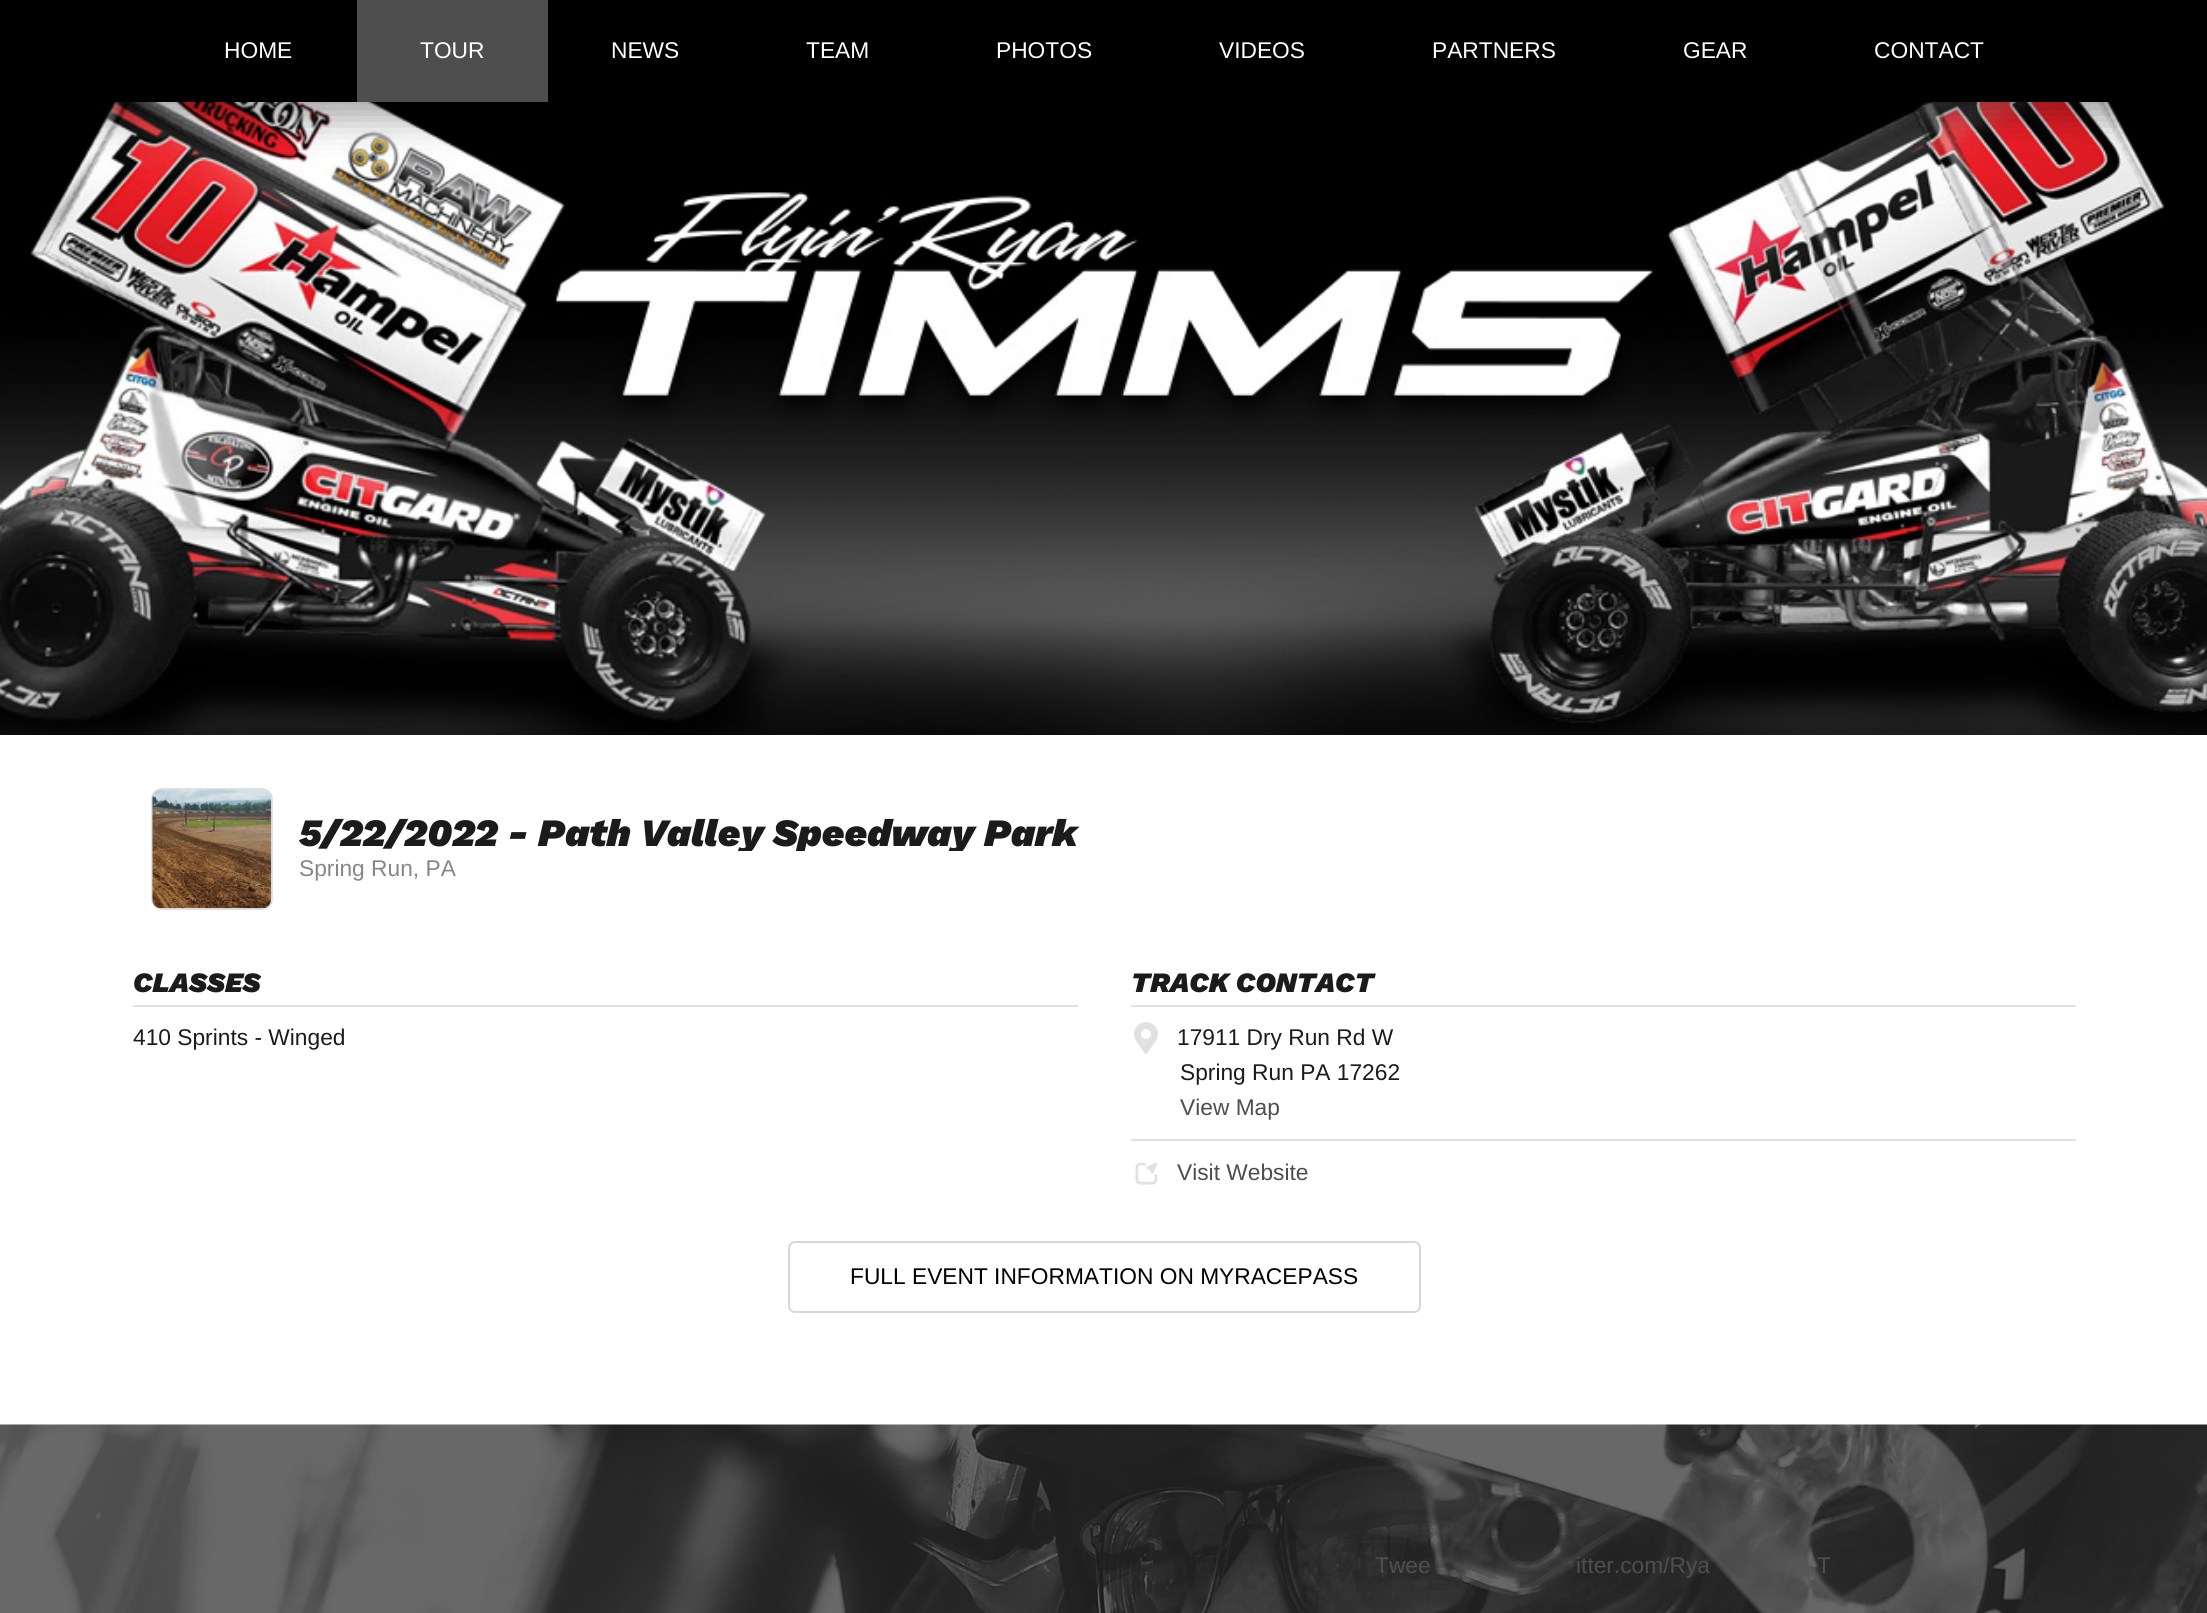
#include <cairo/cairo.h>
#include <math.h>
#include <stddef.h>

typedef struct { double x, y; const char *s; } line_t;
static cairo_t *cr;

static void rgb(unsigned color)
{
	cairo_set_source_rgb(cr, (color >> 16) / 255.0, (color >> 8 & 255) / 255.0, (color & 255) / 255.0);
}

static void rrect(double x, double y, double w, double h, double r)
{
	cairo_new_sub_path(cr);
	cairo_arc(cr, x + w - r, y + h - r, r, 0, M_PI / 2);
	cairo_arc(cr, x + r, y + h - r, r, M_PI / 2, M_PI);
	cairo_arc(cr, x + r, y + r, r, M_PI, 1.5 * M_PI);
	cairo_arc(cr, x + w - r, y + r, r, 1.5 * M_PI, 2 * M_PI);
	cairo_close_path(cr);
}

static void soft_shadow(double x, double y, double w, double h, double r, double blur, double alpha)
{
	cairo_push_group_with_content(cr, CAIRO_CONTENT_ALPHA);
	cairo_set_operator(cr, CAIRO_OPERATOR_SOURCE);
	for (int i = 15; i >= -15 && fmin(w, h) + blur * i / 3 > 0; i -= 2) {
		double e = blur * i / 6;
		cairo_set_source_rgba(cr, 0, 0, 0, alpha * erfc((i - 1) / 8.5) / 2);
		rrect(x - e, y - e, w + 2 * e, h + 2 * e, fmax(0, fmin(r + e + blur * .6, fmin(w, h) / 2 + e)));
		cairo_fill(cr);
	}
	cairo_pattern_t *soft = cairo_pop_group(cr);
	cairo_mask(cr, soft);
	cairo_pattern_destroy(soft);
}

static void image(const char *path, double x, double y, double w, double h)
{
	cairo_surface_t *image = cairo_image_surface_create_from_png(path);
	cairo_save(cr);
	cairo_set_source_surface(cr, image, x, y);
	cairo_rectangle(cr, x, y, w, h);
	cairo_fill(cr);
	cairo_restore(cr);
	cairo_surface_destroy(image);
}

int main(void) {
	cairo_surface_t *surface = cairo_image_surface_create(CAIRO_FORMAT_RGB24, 2207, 1613);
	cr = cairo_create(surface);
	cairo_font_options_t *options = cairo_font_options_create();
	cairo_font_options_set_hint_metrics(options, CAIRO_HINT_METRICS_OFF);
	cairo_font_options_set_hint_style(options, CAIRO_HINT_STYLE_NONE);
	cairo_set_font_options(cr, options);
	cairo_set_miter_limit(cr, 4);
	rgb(0xffffff);
	cairo_paint(cr);
	image("img/1.png", 0, 102, 2207, 633);
	rgb(0x000000);
	soft_shadow(0, 18, 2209, 101, 0, 17.5, 0.35);
	rgb(0x000000);
	cairo_rectangle(cr, 0, 0, 2207, 102);
	cairo_fill(cr);
	rgb(0x4e4e4e);
	cairo_rectangle(cr, 357, 0, 191, 102);
	cairo_fill(cr);
	rrect(152, 789, 120, 120, 10);
	rgb(0xe1e1e1);
	cairo_stroke(cr);
	image("img/2.png", 152, 789, 120, 120);
	cairo_rectangle(cr, 133, 1005, 945, 2);
	cairo_fill(cr);
	cairo_rectangle(cr, 1131, 1005, 945, 2);
	cairo_fill(cr);
	image("img/3.png", 1134, 1022, 24, 32);
	cairo_rectangle(cr, 1131, 1139, 945, 2);
	cairo_fill(cr);
	image("img/4.png", 1135, 1162, 23, 23);
	rrect(789, 1242, 631, 70, 6);
	rgb(0xd7d7d7);
	cairo_stroke(cr);
	image("img/5.png", 0, 1424, 2207, 189);
	cairo_select_font_face(cr, "Liberation Sans", CAIRO_FONT_SLANT_NORMAL, CAIRO_FONT_WEIGHT_NORMAL);
	cairo_set_font_size(cr, 22.75);
	rgb(0xffffff);
	{
		static const line_t items[] = {
			{224, 58, "HOME"},
			{420, 58, "TOUR"},
			{611, 58, "NEWS"},
			{806, 58, "TEAM"},
			{996, 58, "PHOTOS"},
			{1219, 58, "VIDEOS"},
			{1432, 58, "PARTNERS"},
			{1683, 58, "GEAR"},
			{1874, 58, "CONTACT"},
		};
		for (size_t i = 0; i < sizeof items / sizeof *items; i++) {
			cairo_move_to(cr, items[i].x, items[i].y);
			cairo_show_text(cr, items[i].s);
		}
	}
	cairo_save(cr);
	cairo_rectangle(cr, 299, 812, 1759, 39);
	cairo_clip(cr);
	cairo_select_font_face(cr, "Work Sans Black", CAIRO_FONT_SLANT_ITALIC, CAIRO_FONT_WEIGHT_NORMAL);
	cairo_set_font_size(cr, 38.7);
	rgb(0x1b1b1c);
	cairo_move_to(cr, 299, 846);
	cairo_show_text(cr, "5/22/2022 - Path Valley Speedway Park");
	cairo_restore(cr);
	rgb(0x868686);
	cairo_move_to(cr, 299, 876);
	cairo_show_text(cr, "Spring Run, PA");
	cairo_select_font_face(cr, "Work Sans Black", CAIRO_FONT_SLANT_ITALIC, CAIRO_FONT_WEIGHT_NORMAL);
	cairo_set_font_size(cr, 28);
	rgb(0x1b1b1c);
	cairo_move_to(cr, 133, 992);
	cairo_show_text(cr, "CLASSES");
	cairo_select_font_face(cr, "Liberation Sans", CAIRO_FONT_SLANT_NORMAL, CAIRO_FONT_WEIGHT_NORMAL);
	cairo_set_font_size(cr, 22.75);
	cairo_move_to(cr, 133, 1045);
	cairo_show_text(cr, "410 Sprints - Winged");
	cairo_select_font_face(cr, "Work Sans Black", CAIRO_FONT_SLANT_ITALIC, CAIRO_FONT_WEIGHT_NORMAL);
	cairo_set_font_size(cr, 28);
	cairo_move_to(cr, 1131, 992);
	cairo_show_text(cr, "TRACK CONTACT");
	cairo_select_font_face(cr, "Liberation Sans", CAIRO_FONT_SLANT_NORMAL, CAIRO_FONT_WEIGHT_NORMAL);
	cairo_set_font_size(cr, 22.75);
	cairo_move_to(cr, 1177, 1045);
	cairo_show_text(cr, "17911 Dry Run Rd W");
	cairo_move_to(cr, 1180, 1080);
	cairo_show_text(cr, "Spring Run PA 17262");
	rgb(0x4e4e4e);
	cairo_move_to(cr, 1180, 1115);
	cairo_show_text(cr, "View Map");
	cairo_move_to(cr, 1177, 1180);
	cairo_show_text(cr, "Visit Website");
	rgb(0x000000);
	cairo_move_to(cr, 850, 1284);
	cairo_show_text(cr, "FULL EVENT INFORMATION ON MYRACEPASS");
	rgb(0x4e4e4e);
	{
		static const line_t items[] = {
			{1375, 1573, "Twee"},
			{1576, 1573, "itter.com/Rya"},
			{1817, 1573, "T"},
		};
		for (size_t i = 0; i < sizeof items / sizeof *items; i++) {
			cairo_move_to(cr, items[i].x, items[i].y);
			cairo_show_text(cr, items[i].s);
		}
	}
	cairo_surface_write_to_png(surface, "page.png");
	cairo_font_options_destroy(options);
	cairo_destroy(cr);
	cairo_surface_destroy(surface);
	return 0;
}
